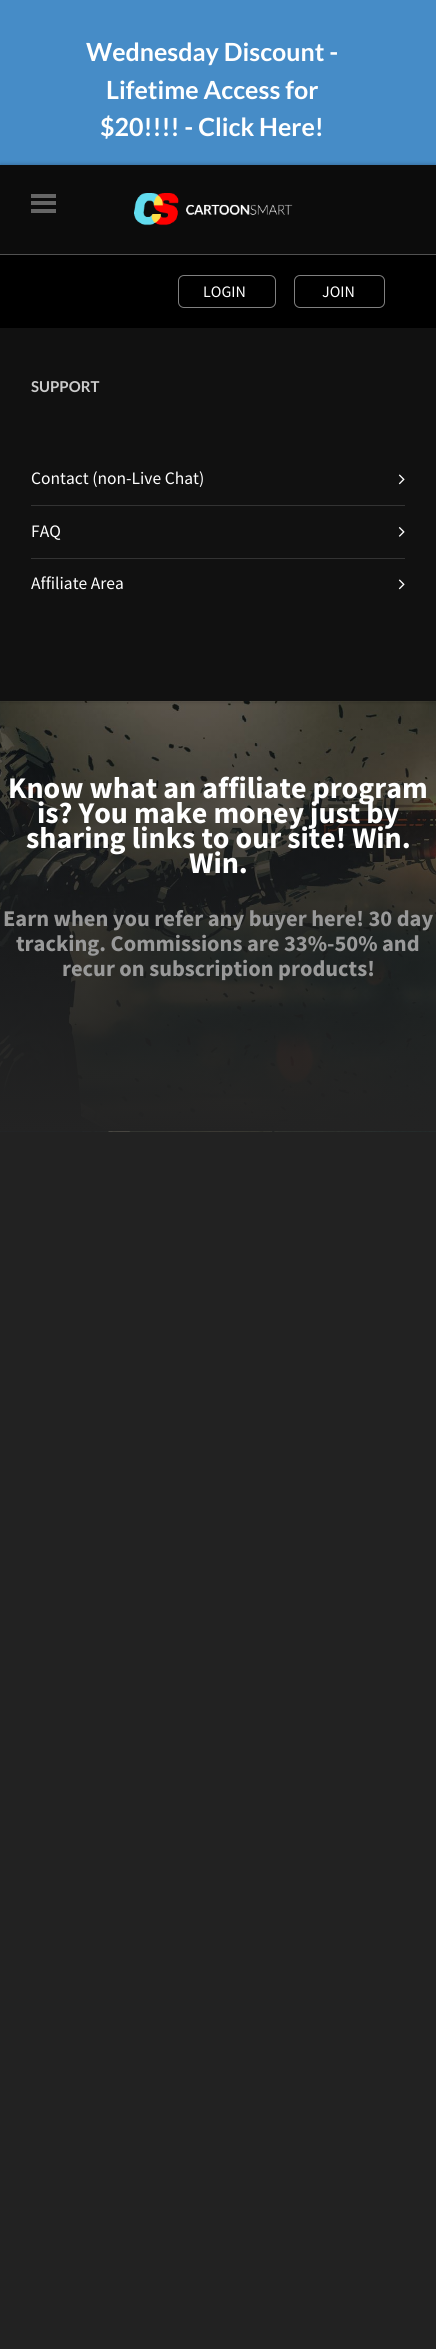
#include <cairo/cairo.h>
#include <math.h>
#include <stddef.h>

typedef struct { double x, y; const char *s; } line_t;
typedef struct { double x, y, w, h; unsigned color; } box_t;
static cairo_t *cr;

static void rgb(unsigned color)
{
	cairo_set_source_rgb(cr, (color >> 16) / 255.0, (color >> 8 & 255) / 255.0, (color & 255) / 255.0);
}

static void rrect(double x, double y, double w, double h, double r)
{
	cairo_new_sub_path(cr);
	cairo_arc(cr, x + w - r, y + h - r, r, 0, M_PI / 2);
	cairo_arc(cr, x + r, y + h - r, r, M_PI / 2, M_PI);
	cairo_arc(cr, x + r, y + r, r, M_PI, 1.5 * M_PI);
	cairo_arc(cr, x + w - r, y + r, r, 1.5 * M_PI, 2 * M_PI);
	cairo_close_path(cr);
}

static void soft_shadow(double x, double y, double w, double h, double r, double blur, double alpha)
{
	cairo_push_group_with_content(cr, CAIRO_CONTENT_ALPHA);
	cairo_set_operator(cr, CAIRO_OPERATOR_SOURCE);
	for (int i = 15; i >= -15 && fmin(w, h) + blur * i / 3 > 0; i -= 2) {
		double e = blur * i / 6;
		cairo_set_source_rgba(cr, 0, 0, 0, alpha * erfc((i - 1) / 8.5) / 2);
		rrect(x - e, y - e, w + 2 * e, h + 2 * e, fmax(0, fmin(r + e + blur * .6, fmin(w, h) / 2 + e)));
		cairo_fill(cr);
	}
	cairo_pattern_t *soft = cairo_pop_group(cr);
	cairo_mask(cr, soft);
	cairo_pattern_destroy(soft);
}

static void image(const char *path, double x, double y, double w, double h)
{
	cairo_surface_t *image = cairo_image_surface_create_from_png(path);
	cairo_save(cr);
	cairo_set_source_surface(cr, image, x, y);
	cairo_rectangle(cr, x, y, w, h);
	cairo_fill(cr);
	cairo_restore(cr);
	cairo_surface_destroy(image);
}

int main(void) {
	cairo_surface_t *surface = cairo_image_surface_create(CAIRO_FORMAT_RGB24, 436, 2349);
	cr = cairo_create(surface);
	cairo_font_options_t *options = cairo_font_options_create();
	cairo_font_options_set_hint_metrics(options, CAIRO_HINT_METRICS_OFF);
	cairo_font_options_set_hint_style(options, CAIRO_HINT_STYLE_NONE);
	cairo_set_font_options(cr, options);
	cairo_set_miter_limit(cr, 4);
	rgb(0x222222);
	cairo_paint(cr);
	rgb(0x468cc7);
	cairo_rectangle(cr, 0, 0, 436, 165);
	cairo_fill(cr);
	image("img/4.png", 0, 701, 436, 431);
	rgb(0x000000);
	soft_shadow(0, 165, 436, 536, 0, 2.5, 0.3);
	{
		static const box_t items[] = {
			{0, 165, 436, 89, 0x0c0c0c},
			{0, 254, 436, 1, 0x515151},
			{31, 201, 25, 4, 0x666666},
			{31, 194, 25, 4, 0x666666},
			{31, 209, 25, 4, 0x666666},
		};
		for (size_t i = 0; i < sizeof items / sizeof *items; i++) {
			rgb(items[i].color);
			cairo_rectangle(cr, items[i].x, items[i].y, items[i].w, items[i].h);
			cairo_fill(cr);
		}
	}
	image("img/1.png", 134, 193, 159, 33);
	rgb(0x000000);
	cairo_rectangle(cr, 0, 255, 436, 73);
	cairo_fill(cr);
	rrect(178.5, 275.5, 97, 32, 5.5);
	rgb(0x808080);
	cairo_set_line_width(cr, 1);
	cairo_stroke(cr);
	rrect(294.5, 275.5, 90, 32, 5.5);
	cairo_stroke(cr);
	rgb(0x111111);
	cairo_rectangle(cr, 0, 328, 436, 373);
	cairo_fill(cr);
	image("img/2.png", 398, 474, 7, 11);
	rgb(0x333333);
	cairo_rectangle(cr, 31, 505, 374, 1);
	cairo_fill(cr);
	image("img/3.png", 398, 527, 7, 10);
	cairo_rectangle(cr, 31, 558, 374, 1);
	cairo_fill(cr);
	image("img/2.png", 398, 579, 7, 11);
	cairo_select_font_face(cr, "Lato", CAIRO_FONT_SLANT_NORMAL, CAIRO_FONT_WEIGHT_BOLD);
	cairo_set_font_size(cr, 25);
	rgb(0xffffff);
	{
		static const line_t items[] = {
			{86, 61, "Wednesday Discount -"},
			{106, 99, "Lifetime Access for"},
			{100, 136, "$20!!!! - Click Here!"},
		};
		for (size_t i = 0; i < sizeof items / sizeof *items; i++) {
			cairo_move_to(cr, items[i].x, items[i].y);
			cairo_show_text(cr, items[i].s);
		}
	}
	cairo_select_font_face(cr, "Source Sans Pro", CAIRO_FONT_SLANT_NORMAL, CAIRO_FONT_WEIGHT_NORMAL);
	cairo_set_font_size(cr, 16);
	cairo_move_to(cr, 203, 297);
	cairo_show_text(cr, "LOGIN");
	cairo_move_to(cr, 322, 297);
	cairo_show_text(cr, "JOIN");
	cairo_select_font_face(cr, "Lato", CAIRO_FONT_SLANT_NORMAL, CAIRO_FONT_WEIGHT_BOLD);
	cairo_set_font_size(cr, 15);
	rgb(0xcccccc);
	cairo_move_to(cr, 31, 392);
	cairo_show_text(cr, "SUPPORT");
	cairo_select_font_face(cr, "Source Sans Pro", CAIRO_FONT_SLANT_NORMAL, CAIRO_FONT_WEIGHT_NORMAL);
	cairo_set_font_size(cr, 17.5);
	rgb(0xffffff);
	{
		static const line_t items[] = {
			{31, 484, "Contact (non-Live Chat)"},
			{31, 537, "FAQ"},
			{31, 589, "Affiliate Area"},
		};
		for (size_t i = 0; i < sizeof items / sizeof *items; i++) {
			cairo_move_to(cr, items[i].x, items[i].y);
			cairo_show_text(cr, items[i].s);
		}
	}
	cairo_select_font_face(cr, "Source Sans Pro", CAIRO_FONT_SLANT_NORMAL, CAIRO_FONT_WEIGHT_BOLD);
	cairo_set_font_size(cr, 30);
	{
		static const line_t items[] = {
			{8, 798, "Know what an affiliate program"},
			{37, 823, "is? You make money just by"},
			{26, 848, "sharing links to our site! Win."},
			{189, 873, "Win."},
		};
		for (size_t i = 0; i < sizeof items / sizeof *items; i++) {
			cairo_move_to(cr, items[i].x, items[i].y);
			cairo_show_text(cr, items[i].s);
		}
	}
	cairo_set_font_size(cr, 22.5);
	rgb(0x999999);
	{
		static const line_t items[] = {
			{3, 926, "Earn when you refer any buyer here! 30 day"},
			{16, 951, "tracking. Commissions are 33%-50% and"},
			{62, 976, "recur on subscription products!"},
		};
		for (size_t i = 0; i < sizeof items / sizeof *items; i++) {
			cairo_move_to(cr, items[i].x, items[i].y);
			cairo_show_text(cr, items[i].s);
		}
	}
	cairo_surface_write_to_png(surface, "page.png");
	cairo_font_options_destroy(options);
	cairo_destroy(cr);
	cairo_surface_destroy(surface);
	return 0;
}
